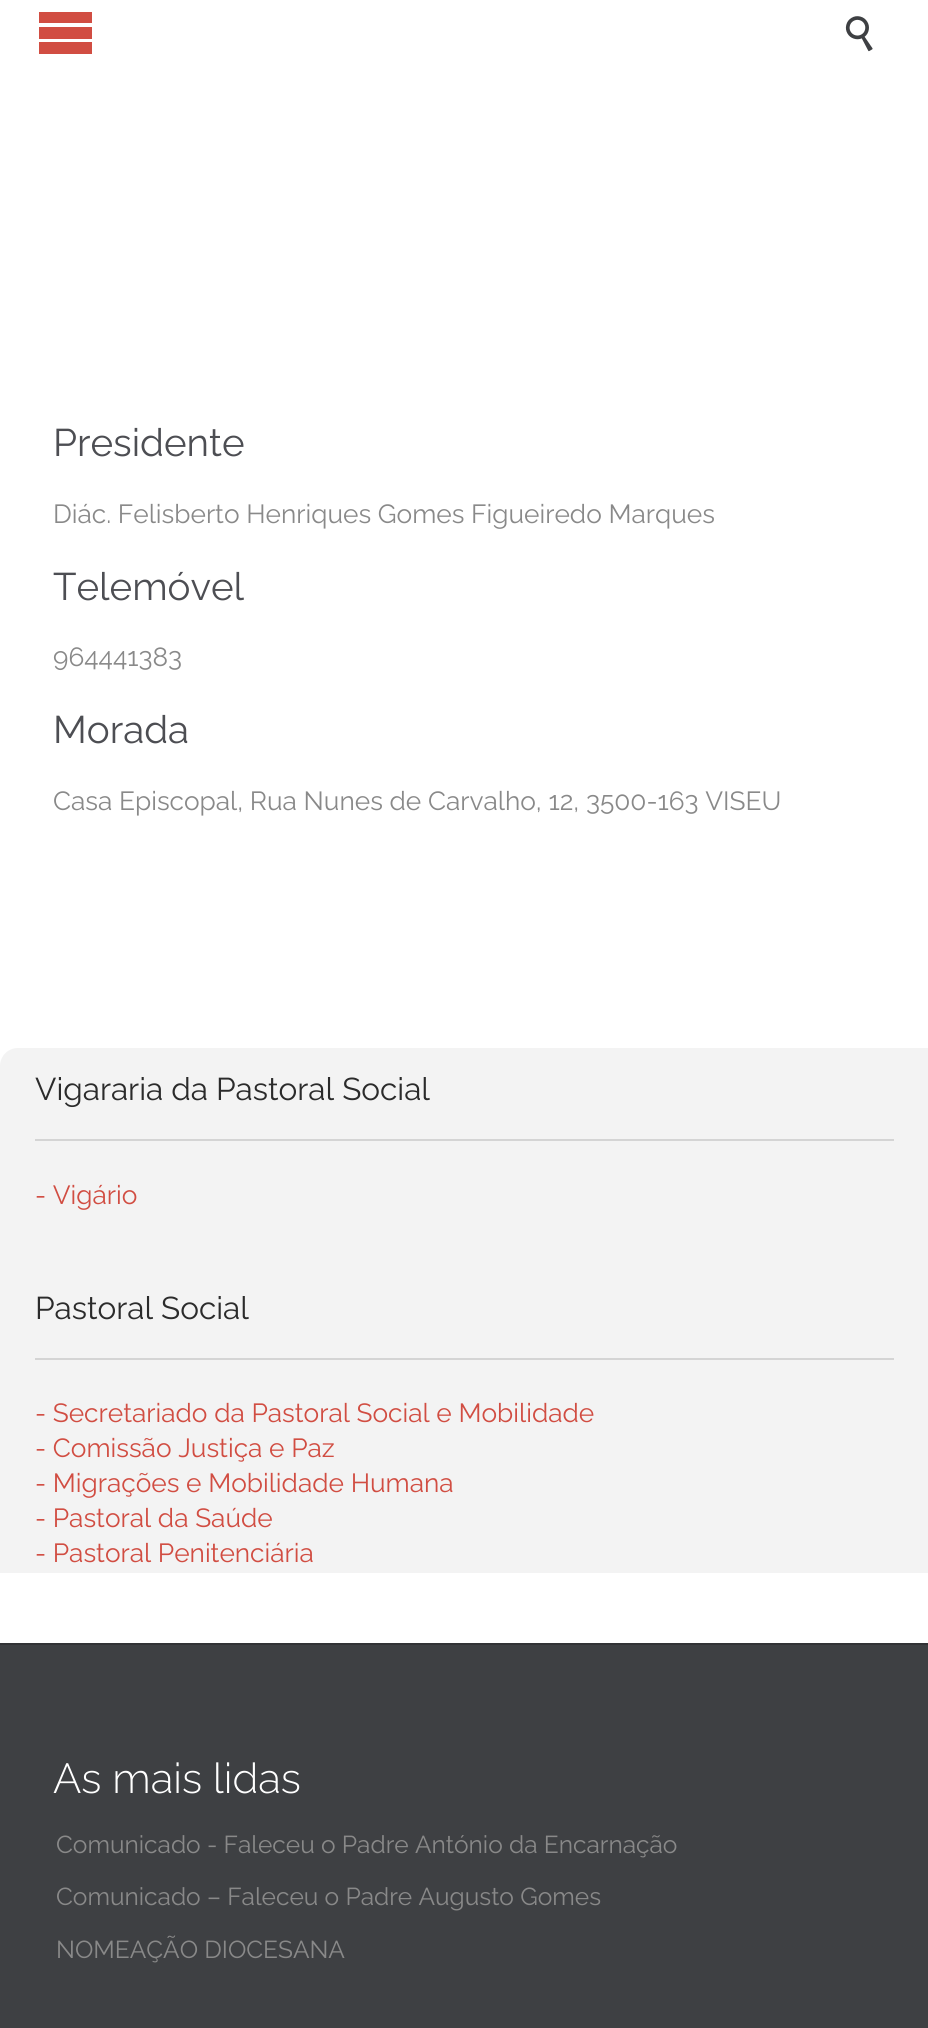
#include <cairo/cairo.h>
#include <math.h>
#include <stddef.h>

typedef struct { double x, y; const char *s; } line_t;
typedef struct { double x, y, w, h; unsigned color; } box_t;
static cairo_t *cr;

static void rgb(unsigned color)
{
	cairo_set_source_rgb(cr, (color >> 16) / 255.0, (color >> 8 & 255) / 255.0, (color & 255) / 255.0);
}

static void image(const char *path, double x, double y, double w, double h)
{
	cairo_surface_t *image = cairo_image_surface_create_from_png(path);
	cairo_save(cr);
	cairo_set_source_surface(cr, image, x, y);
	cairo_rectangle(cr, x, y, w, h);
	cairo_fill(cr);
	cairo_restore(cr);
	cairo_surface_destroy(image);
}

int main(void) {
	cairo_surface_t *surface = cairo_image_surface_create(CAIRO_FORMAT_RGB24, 928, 2028);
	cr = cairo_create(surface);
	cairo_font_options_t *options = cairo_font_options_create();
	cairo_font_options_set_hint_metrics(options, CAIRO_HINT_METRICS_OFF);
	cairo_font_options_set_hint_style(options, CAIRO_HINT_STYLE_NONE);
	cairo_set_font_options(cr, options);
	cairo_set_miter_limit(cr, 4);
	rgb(0xffffff);
	cairo_paint(cr);
	rgb(0xd14d42);
	cairo_new_path(cr);
	cairo_move_to(cr, 39, 12);
	cairo_line_to(cr, 92, 12);
	cairo_line_to(cr, 92, 23);
	cairo_line_to(cr, 39, 23);
	cairo_close_path(cr);
	cairo_move_to(cr, 39, 27);
	cairo_line_to(cr, 92, 27);
	cairo_line_to(cr, 92, 39);
	cairo_line_to(cr, 39, 39);
	cairo_close_path(cr);
	cairo_move_to(cr, 39, 42);
	cairo_line_to(cr, 92, 42);
	cairo_line_to(cr, 92, 54);
	cairo_line_to(cr, 39, 54);
	cairo_close_path(cr);
	cairo_fill(cr);
	image("img/1.png", 845, 16, 28, 36);
	rgb(0xf3f3f3);
	cairo_new_path(cr);
	cairo_move_to(cr, 18, 1048);
	cairo_line_to(cr, 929, 1048);
	cairo_line_to(cr, 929, 1573);
	cairo_line_to(cr, 0, 1573);
	cairo_line_to(cr, 0, 1066);
	cairo_curve_to(cr, 0, 1056, 8, 1048, 18, 1048);
	cairo_close_path(cr);
	cairo_fill(cr);
	{
		static const box_t items[] = {
			{35, 1139, 859, 2, 0xd4d4d4},
			{35, 1358, 859, 2, 0xd4d4d4},
			{0, 1645, 928, 383, 0x3e4043},
			{0, 1643, 928, 2, 0x323336},
		};
		for (size_t i = 0; i < sizeof items / sizeof *items; i++) {
			rgb(items[i].color);
			cairo_rectangle(cr, items[i].x, items[i].y, items[i].w, items[i].h);
			cairo_fill(cr);
		}
	}
	cairo_select_font_face(cr, "Raleway", CAIRO_FONT_SLANT_NORMAL, CAIRO_FONT_WEIGHT_NORMAL);
	cairo_set_font_size(cr, 38.5);
	rgb(0x4d4e53);
	cairo_move_to(cr, 53, 456);
	cairo_show_text(cr, "Presidente");
	cairo_set_font_size(cr, 26.25);
	rgb(0x898989);
	cairo_move_to(cr, 53, 523);
	cairo_show_text(cr, "Diác. Felisberto Henriques Gomes Figueiredo Marques");
	cairo_set_font_size(cr, 38.5);
	rgb(0x4d4e53);
	cairo_move_to(cr, 53, 600);
	cairo_show_text(cr, "Telemóvel");
	cairo_set_font_size(cr, 26.25);
	rgb(0x898989);
	cairo_move_to(cr, 53, 666);
	cairo_show_text(cr, "964441383");
	cairo_set_font_size(cr, 38.5);
	rgb(0x4d4e53);
	cairo_move_to(cr, 53, 743);
	cairo_show_text(cr, "Morada");
	cairo_set_font_size(cr, 26.25);
	rgb(0x898989);
	cairo_move_to(cr, 53, 810);
	cairo_show_text(cr, "Casa Episcopal, Rua Nunes de Carvalho, 12, 3500-163 VISEU");
	cairo_set_font_size(cr, 31.5);
	rgb(0x2b2b2b);
	cairo_move_to(cr, 35, 1100);
	cairo_show_text(cr, "Vigararia da Pastoral Social");
	cairo_set_font_size(cr, 26.25);
	rgb(0xd14d42);
	cairo_move_to(cr, 35, 1204);
	cairo_show_text(cr, "- Vigário");
	cairo_set_font_size(cr, 31.5);
	rgb(0x2b2b2b);
	cairo_move_to(cr, 35, 1319);
	cairo_show_text(cr, "Pastoral Social");
	cairo_set_font_size(cr, 26.25);
	rgb(0xd14d42);
	{
		static const line_t items[] = {
			{35, 1422, "- Secretariado da Pastoral Social e Mobilidade"},
			{35, 1457, "- Comissão Justiça e Paz"},
			{35, 1492, "- Migrações e Mobilidade Humana"},
			{35, 1527, "- Pastoral da Saúde"},
			{35, 1562, "- Pastoral Penitenciária"},
		};
		for (size_t i = 0; i < sizeof items / sizeof *items; i++) {
			cairo_move_to(cr, items[i].x, items[i].y);
			cairo_show_text(cr, items[i].s);
		}
	}
	cairo_select_font_face(cr, "Raleway Light", CAIRO_FONT_SLANT_NORMAL, CAIRO_FONT_WEIGHT_NORMAL);
	cairo_set_font_size(cr, 42);
	rgb(0xffffff);
	cairo_move_to(cr, 53, 1793);
	cairo_show_text(cr, "As mais lidas");
	cairo_select_font_face(cr, "Raleway", CAIRO_FONT_SLANT_NORMAL, CAIRO_FONT_WEIGHT_NORMAL);
	cairo_set_font_size(cr, 24.5);
	rgb(0x898989);
	{
		static const line_t items[] = {
			{56, 1853, "Comunicado - Faleceu o Padre António da Encarnação"},
			{56, 1905, "Comunicado – Faleceu o Padre Augusto Gomes"},
			{56, 1958, "NOMEAÇÃO DIOCESANA"},
		};
		for (size_t i = 0; i < sizeof items / sizeof *items; i++) {
			cairo_move_to(cr, items[i].x, items[i].y);
			cairo_show_text(cr, items[i].s);
		}
	}
	cairo_surface_write_to_png(surface, "page.png");
	cairo_font_options_destroy(options);
	cairo_destroy(cr);
	cairo_surface_destroy(surface);
	return 0;
}
